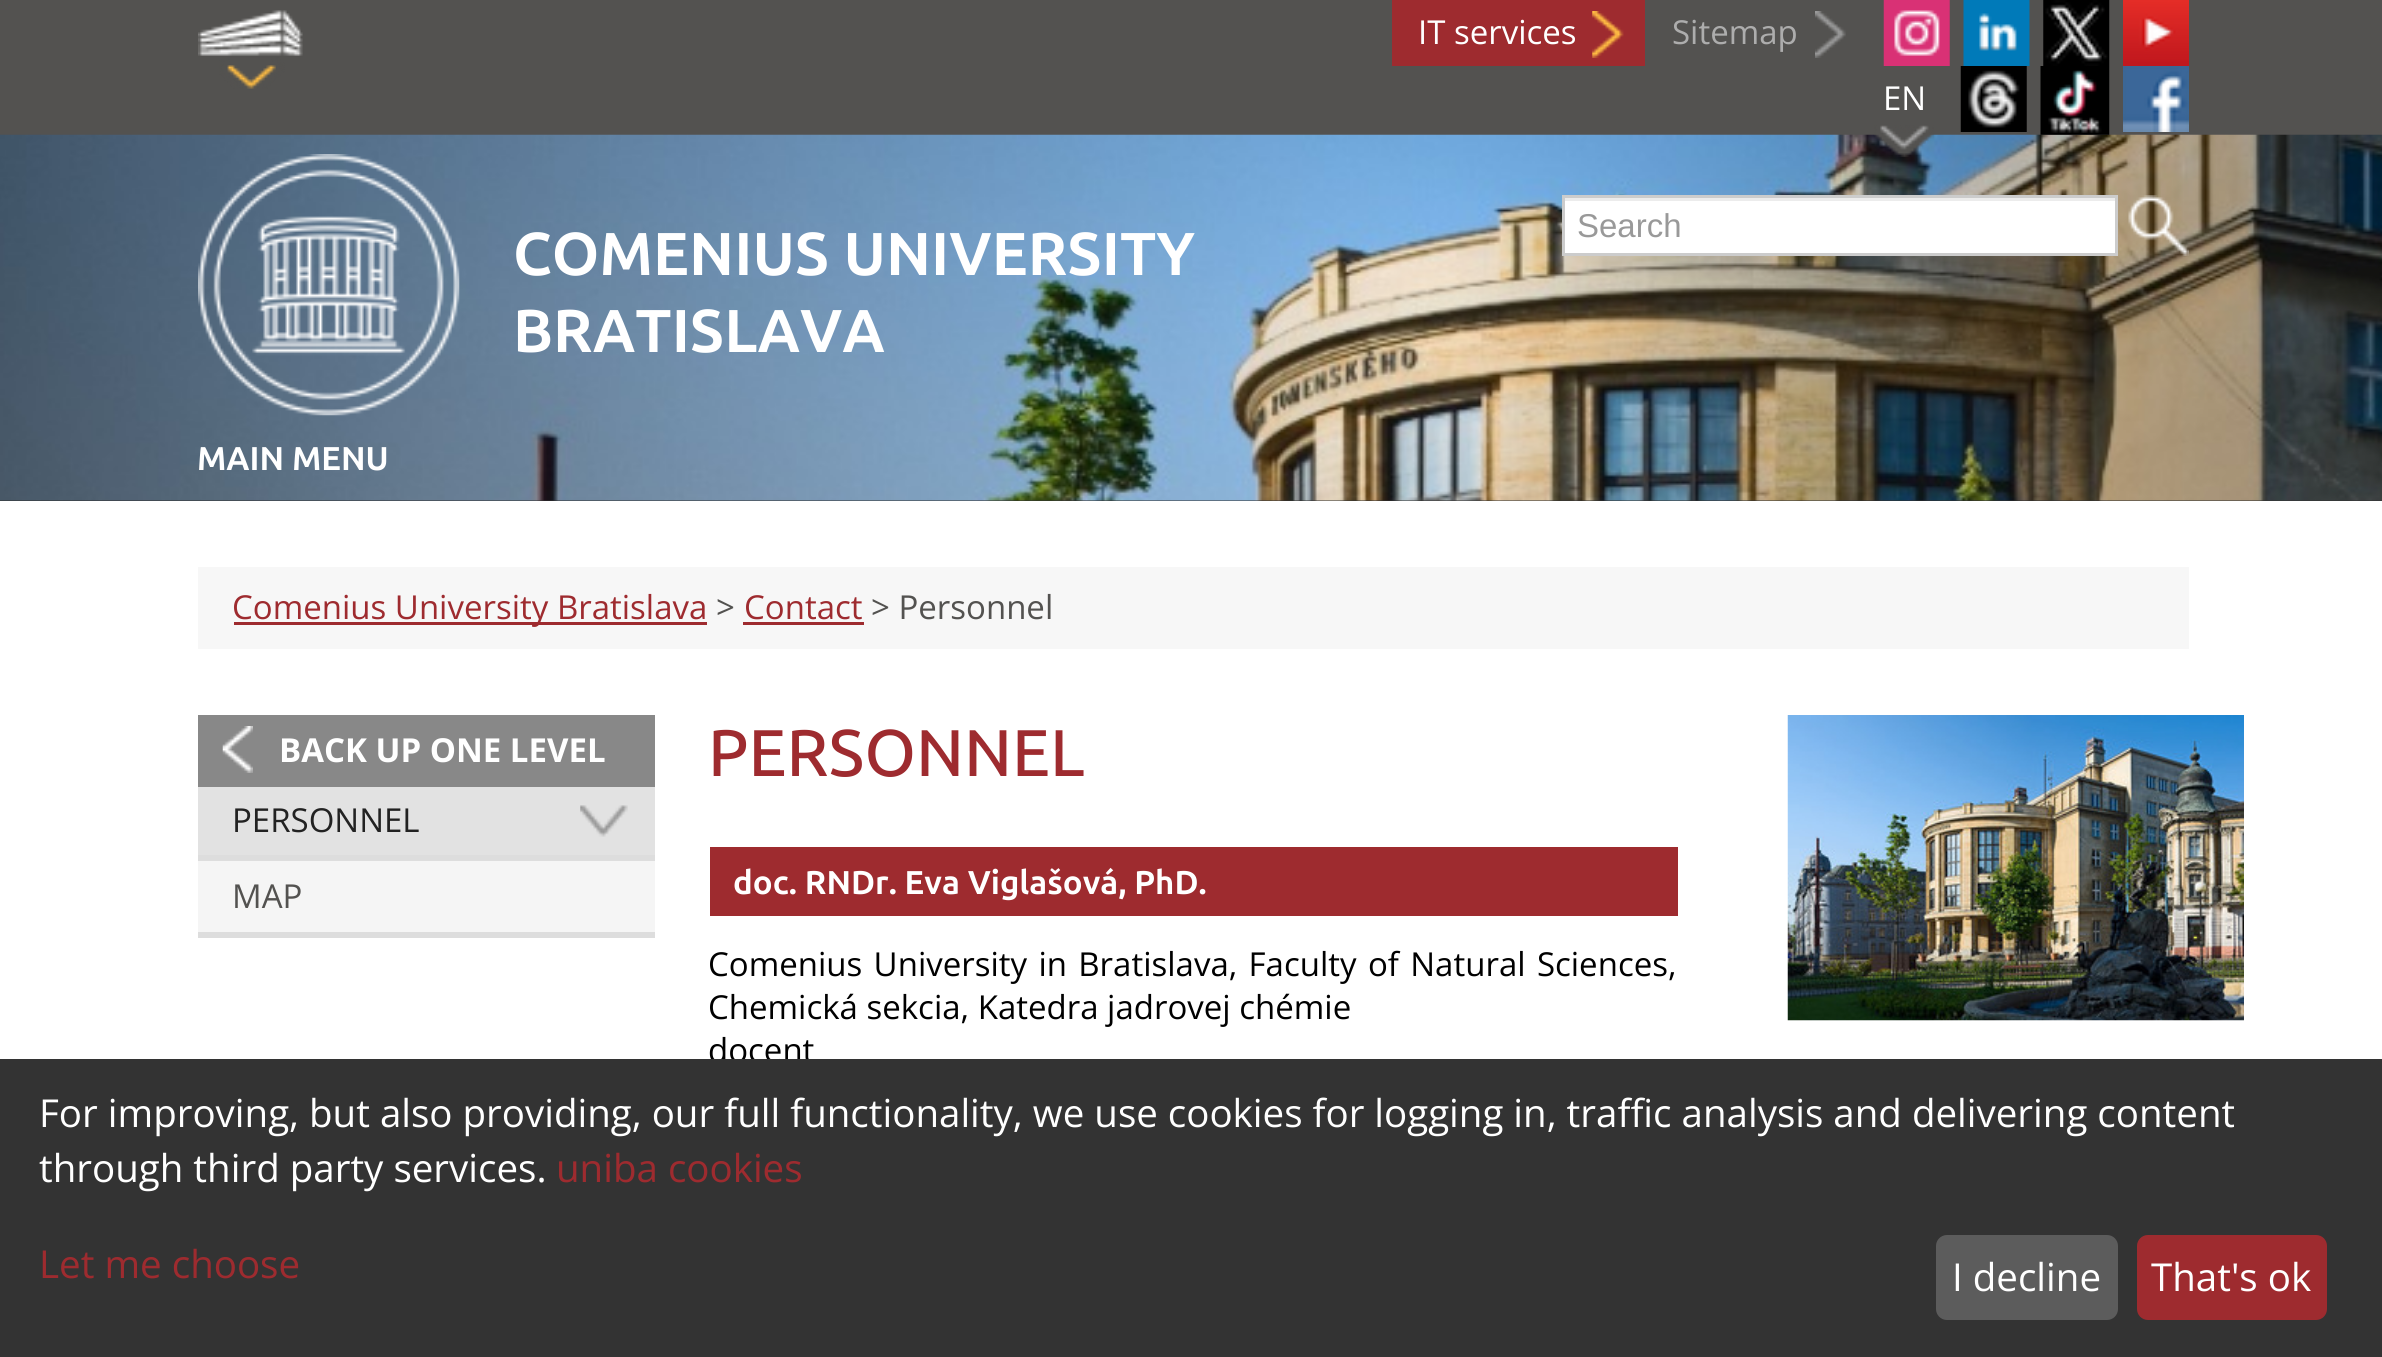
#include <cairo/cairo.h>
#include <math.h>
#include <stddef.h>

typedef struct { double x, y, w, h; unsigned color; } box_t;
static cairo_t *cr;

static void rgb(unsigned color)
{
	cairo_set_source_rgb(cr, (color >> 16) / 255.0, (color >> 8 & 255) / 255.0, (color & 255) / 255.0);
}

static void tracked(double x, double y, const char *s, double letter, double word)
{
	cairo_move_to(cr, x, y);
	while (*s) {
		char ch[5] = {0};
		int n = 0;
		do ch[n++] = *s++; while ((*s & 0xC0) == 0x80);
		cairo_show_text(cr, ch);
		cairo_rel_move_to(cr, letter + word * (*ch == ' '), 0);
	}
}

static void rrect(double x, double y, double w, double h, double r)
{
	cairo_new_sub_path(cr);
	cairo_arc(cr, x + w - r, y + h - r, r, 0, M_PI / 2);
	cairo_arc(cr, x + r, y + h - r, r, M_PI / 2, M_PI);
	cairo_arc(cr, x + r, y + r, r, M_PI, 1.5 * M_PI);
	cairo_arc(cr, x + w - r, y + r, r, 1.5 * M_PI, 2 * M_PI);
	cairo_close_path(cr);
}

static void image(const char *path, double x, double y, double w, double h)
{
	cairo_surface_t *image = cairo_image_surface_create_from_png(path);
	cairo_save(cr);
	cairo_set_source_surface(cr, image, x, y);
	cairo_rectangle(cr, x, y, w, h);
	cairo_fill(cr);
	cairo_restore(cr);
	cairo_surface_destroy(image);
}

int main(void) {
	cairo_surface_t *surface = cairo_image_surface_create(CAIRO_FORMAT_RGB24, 2382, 1357);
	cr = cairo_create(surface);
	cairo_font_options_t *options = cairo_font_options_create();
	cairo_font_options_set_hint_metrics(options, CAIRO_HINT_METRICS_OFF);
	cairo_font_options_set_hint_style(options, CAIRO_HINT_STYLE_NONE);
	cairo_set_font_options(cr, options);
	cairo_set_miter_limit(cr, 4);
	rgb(0xffffff);
	cairo_paint(cr);
	rgb(0x535250);
	cairo_rectangle(cr, 0, 0, 2382, 135);
	cairo_fill(cr);
	image("img/1.png", 198, 10, 105, 79);
	rgb(0x9e2b2f);
	cairo_rectangle(cr, 1392, 0, 253, 66);
	cairo_fill(cr);
	image("img/2.png", 1592, 11, 32, 47);
	image("img/3.png", 1815, 11, 31, 47);
	image("img/4.png", 1883, 0, 67, 66);
	image("img/5.png", 1963, 0, 67, 66);
	image("img/6.png", 2043, 0, 67, 66);
	image("img/7.png", 2123, 0, 66, 66);
	rgb(0x323232);
	cairo_rectangle(cr, 0, 500, 2382, 1);
	cairo_fill(cr);
	image("img/12.png", 0, 134, 2382, 367);
	image("img/8.png", 1874, 125, 60, 32);
	image("img/9.png", 1960, 66, 67, 66);
	image("img/10.png", 2040, 66, 70, 69);
	image("img/11.png", 2123, 66, 66, 66);
	rgb(0xffffff);
	cairo_rectangle(cr, 1565, 201, 550, 52);
	cairo_fill(cr);
	rgb(0xececec);
	cairo_rectangle(cr, 1565, 198, 550, 3);
	cairo_fill(cr);
	cairo_rectangle(cr, 1563.5, 196.5, 553, 58);
	rgb(0xcccccc);
	cairo_set_line_width(cr, 3);
	cairo_stroke(cr);
	image("img/13.png", 2128, 195, 61, 61);
	image("img/14.png", 198, 154, 262, 262);
	{
		static const box_t items[] = {
			{198, 567, 1991, 82, 0xf7f7f7},
			{234, 622, 473, 3, 0x9e2b2f},
			{743, 622, 121, 3, 0x9e2b2f},
			{198, 861, 457, 71, 0xf5f5f5},
			{198, 715, 457, 72, 0x888888},
		};
		for (size_t i = 0; i < sizeof items / sizeof *items; i++) {
			rgb(items[i].color);
			cairo_rectangle(cr, items[i].x, items[i].y, items[i].w, items[i].h);
			cairo_fill(cr);
		}
	}
	image("img/15.png", 222, 726, 31, 47);
	rgb(0xdddddd);
	cairo_rectangle(cr, 198, 855, 457, 6);
	cairo_fill(cr);
	rgb(0xe2e2e2);
	cairo_rectangle(cr, 198, 787, 457, 68);
	cairo_fill(cr);
	image("img/16.png", 580, 805, 48, 32);
	rgb(0xdddddd);
	cairo_rectangle(cr, 198, 932, 457, 6);
	cairo_fill(cr);
	rgb(0x9e2b2f);
	cairo_rectangle(cr, 710, 847, 968, 69);
	cairo_fill(cr);
	image("img/17.png", 1787, 715, 457, 306);
	cairo_select_font_face(cr, "Open Sans", CAIRO_FONT_SLANT_NORMAL, CAIRO_FONT_WEIGHT_NORMAL);
	cairo_set_font_size(cr, 33);
	rgb(0xffffff);
	cairo_move_to(cr, 1418, 44);
	cairo_show_text(cr, "IT services");
	rgb(0xadadad);
	cairo_move_to(cr, 1672, 44);
	cairo_show_text(cr, "Sitemap");
	rgb(0xffffff);
	cairo_move_to(cr, 1883, 110);
	cairo_show_text(cr, "EN");
	cairo_select_font_face(cr, "Liberation Sans", CAIRO_FONT_SLANT_NORMAL, CAIRO_FONT_WEIGHT_NORMAL);
	rgb(0x999999);
	cairo_move_to(cr, 1577, 237);
	cairo_show_text(cr, "Search");
	cairo_select_font_face(cr, "Ubuntu", CAIRO_FONT_SLANT_NORMAL, CAIRO_FONT_WEIGHT_BOLD);
	cairo_set_font_size(cr, 60.5);
	rgb(0xffffff);
	cairo_move_to(cr, 513, 275);
	cairo_show_text(cr, "COMENIUS UNIVERSITY");
	cairo_move_to(cr, 513, 352);
	cairo_show_text(cr, "BRATISLAVA");
	cairo_set_font_size(cr, 33);
	cairo_move_to(cr, 197, 470);
	cairo_show_text(cr, "MAIN MENU");
	cairo_select_font_face(cr, "Open Sans", CAIRO_FONT_SLANT_NORMAL, CAIRO_FONT_WEIGHT_NORMAL);
	rgb(0x9e2b2f);
	cairo_move_to(cr, 232, 619);
	cairo_show_text(cr, "Comenius University Bratislava");
	rgb(0x535250);
	cairo_move_to(cr, 716, 619);
	cairo_show_text(cr, ">");
	rgb(0x9e2b2f);
	cairo_move_to(cr, 744, 619);
	cairo_show_text(cr, "Contact");
	rgb(0x535250);
	cairo_move_to(cr, 871, 619);
	cairo_show_text(cr, "> Personnel");
	cairo_select_font_face(cr, "Open Sans", CAIRO_FONT_SLANT_NORMAL, CAIRO_FONT_WEIGHT_BOLD);
	rgb(0xffffff);
	cairo_move_to(cr, 279, 762);
	cairo_show_text(cr, "BACK UP ONE LEVEL");
	cairo_select_font_face(cr, "Open Sans", CAIRO_FONT_SLANT_NORMAL, CAIRO_FONT_WEIGHT_NORMAL);
	rgb(0x222222);
	cairo_move_to(cr, 232, 832);
	cairo_show_text(cr, "PERSONNEL");
	rgb(0x535250);
	cairo_move_to(cr, 232, 908);
	cairo_show_text(cr, "MAP");
	cairo_select_font_face(cr, "Ubuntu Medium", CAIRO_FONT_SLANT_NORMAL, CAIRO_FONT_WEIGHT_NORMAL);
	cairo_set_font_size(cr, 66);
	rgb(0x9e2b2f);
	cairo_move_to(cr, 708, 776);
	cairo_show_text(cr, "PERSONNEL");
	cairo_select_font_face(cr, "Ubuntu", CAIRO_FONT_SLANT_NORMAL, CAIRO_FONT_WEIGHT_BOLD);
	cairo_set_font_size(cr, 33);
	rgb(0xffffff);
	cairo_move_to(cr, 733, 894);
	cairo_show_text(cr, "doc. RNDr. Eva Viglašová, PhD.");
	cairo_select_font_face(cr, "Open Sans", CAIRO_FONT_SLANT_NORMAL, CAIRO_FONT_WEIGHT_NORMAL);
	rgb(0x000000);
	tracked(708, 976, "Comenius University in Bratislava, Faculty of Natural Sciences,", 0, 2.75);
	cairo_move_to(cr, 708, 1019);
	cairo_show_text(cr, "Chemická sekcia, Katedra jadrovej chémie");
	cairo_move_to(cr, 708, 1062);
	cairo_show_text(cr, "docent");
	rgb(0x333333);
	cairo_rectangle(cr, 0, 1059, 2382, 298);
	cairo_fill(cr);
	cairo_set_font_size(cr, 38.5);
	rgb(0xffffff);
	cairo_move_to(cr, 39, 1127);
	cairo_show_text(cr, "For improving, but also providing, our full functionality, we use cookies for logging in, traffic analysis and delivering content");
	cairo_move_to(cr, 39, 1182);
	cairo_show_text(cr, "through third party services.");
	rgb(0x9e2b2f);
	cairo_move_to(cr, 556, 1182);
	cairo_show_text(cr, "uniba cookies");
	cairo_move_to(cr, 39, 1278);
	cairo_show_text(cr, "Let me choose");
	rgb(0x5c5c5c);
	rrect(1936, 1235, 182, 85, 11);
	cairo_fill(cr);
	rgb(0xffffff);
	cairo_move_to(cr, 1952, 1291);
	cairo_show_text(cr, "I decline");
	rgb(0x9e2b2f);
	rrect(2137, 1235, 190, 85, 11);
	cairo_fill(cr);
	rgb(0xffffff);
	cairo_move_to(cr, 2151, 1291);
	cairo_show_text(cr, "That's ok");
	cairo_surface_write_to_png(surface, "page.png");
	cairo_font_options_destroy(options);
	cairo_destroy(cr);
	cairo_surface_destroy(surface);
	return 0;
}
